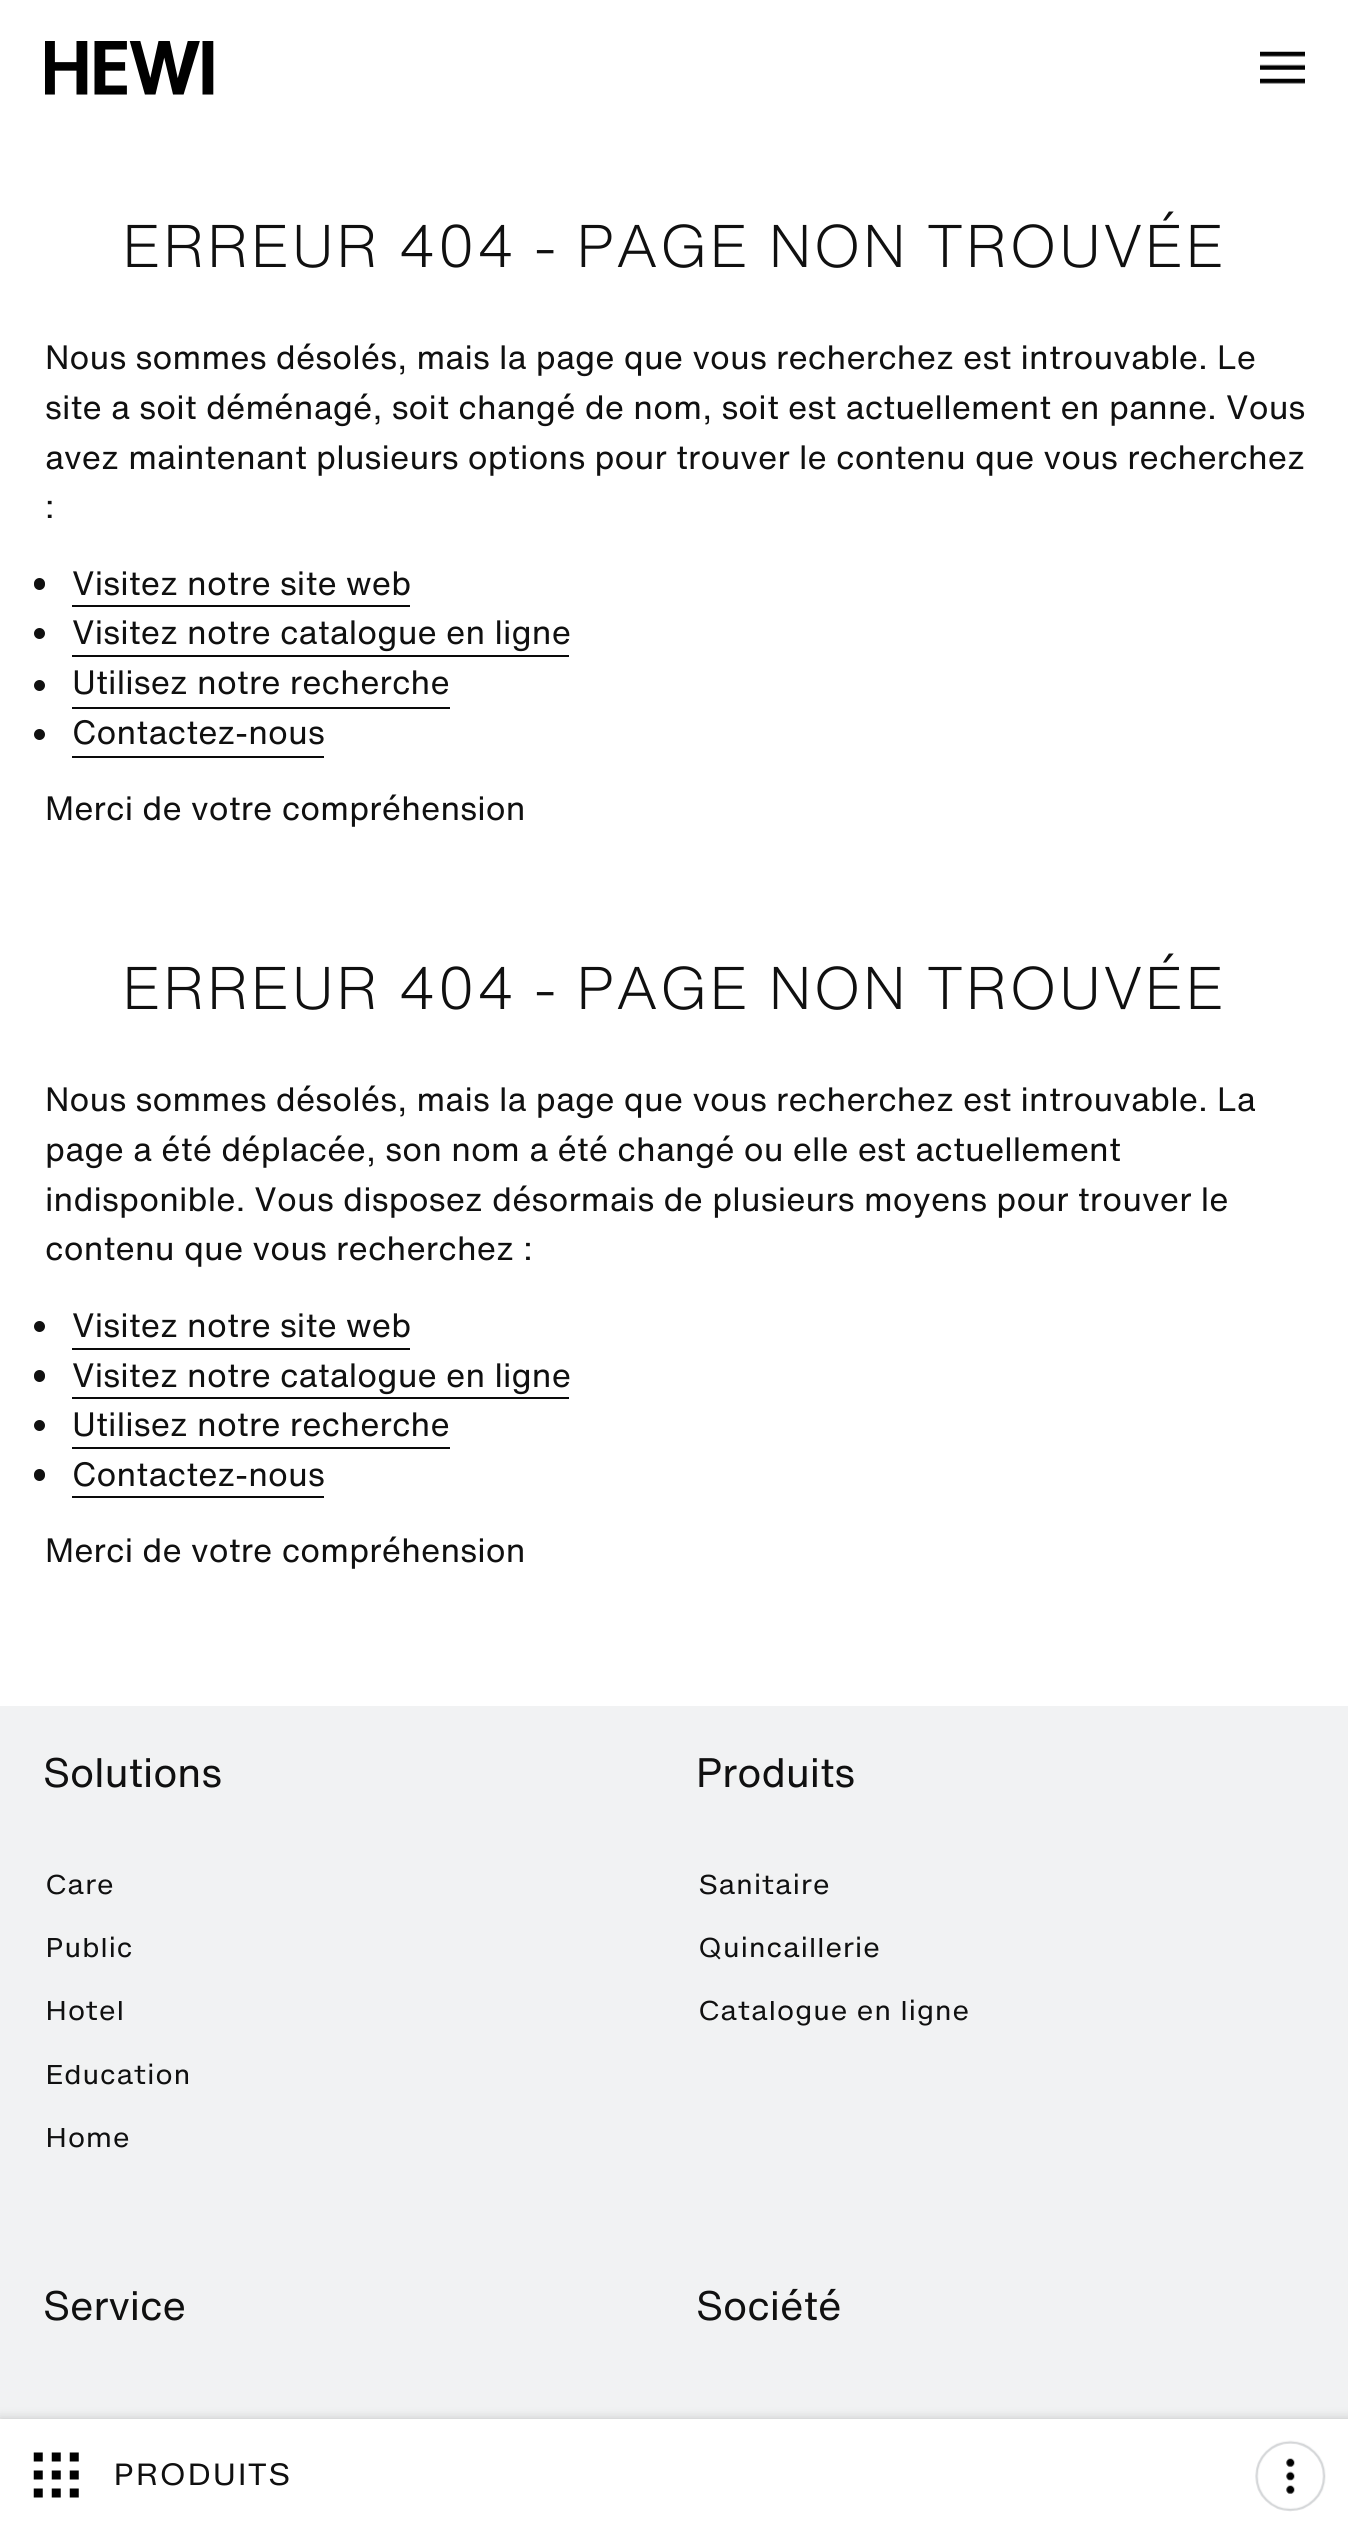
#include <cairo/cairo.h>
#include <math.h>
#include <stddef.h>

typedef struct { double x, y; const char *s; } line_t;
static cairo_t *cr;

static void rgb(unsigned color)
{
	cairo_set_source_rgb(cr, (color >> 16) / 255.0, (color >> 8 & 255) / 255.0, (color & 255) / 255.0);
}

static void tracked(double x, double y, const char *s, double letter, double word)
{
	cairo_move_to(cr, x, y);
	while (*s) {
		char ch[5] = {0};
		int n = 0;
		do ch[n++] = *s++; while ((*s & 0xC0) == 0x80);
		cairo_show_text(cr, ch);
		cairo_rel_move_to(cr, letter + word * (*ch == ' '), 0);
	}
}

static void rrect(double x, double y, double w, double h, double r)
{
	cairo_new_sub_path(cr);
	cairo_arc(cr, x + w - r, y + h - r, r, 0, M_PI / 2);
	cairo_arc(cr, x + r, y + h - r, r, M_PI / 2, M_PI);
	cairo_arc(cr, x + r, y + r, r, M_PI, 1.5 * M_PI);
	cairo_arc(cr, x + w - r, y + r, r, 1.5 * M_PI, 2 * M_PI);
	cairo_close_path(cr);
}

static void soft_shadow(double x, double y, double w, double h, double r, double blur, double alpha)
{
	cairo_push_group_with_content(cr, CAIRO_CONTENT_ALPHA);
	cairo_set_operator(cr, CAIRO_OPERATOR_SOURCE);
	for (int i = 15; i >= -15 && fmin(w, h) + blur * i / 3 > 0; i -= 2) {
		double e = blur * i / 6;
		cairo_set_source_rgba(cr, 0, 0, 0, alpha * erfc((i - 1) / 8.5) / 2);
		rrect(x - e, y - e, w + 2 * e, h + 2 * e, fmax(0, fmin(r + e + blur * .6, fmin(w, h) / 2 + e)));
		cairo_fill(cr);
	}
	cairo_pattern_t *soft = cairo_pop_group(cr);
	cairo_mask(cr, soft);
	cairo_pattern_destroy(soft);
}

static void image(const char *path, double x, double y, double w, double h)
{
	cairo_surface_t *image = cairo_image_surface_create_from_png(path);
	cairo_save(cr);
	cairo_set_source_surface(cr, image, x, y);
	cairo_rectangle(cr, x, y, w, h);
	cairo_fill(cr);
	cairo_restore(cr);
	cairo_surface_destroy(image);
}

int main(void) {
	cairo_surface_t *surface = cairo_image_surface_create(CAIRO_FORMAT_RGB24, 1348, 2530);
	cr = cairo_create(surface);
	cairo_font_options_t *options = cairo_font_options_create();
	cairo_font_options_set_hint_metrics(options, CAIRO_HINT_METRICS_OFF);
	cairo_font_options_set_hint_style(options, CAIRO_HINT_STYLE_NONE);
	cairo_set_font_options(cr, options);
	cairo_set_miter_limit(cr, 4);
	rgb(0xffffff);
	cairo_paint(cr);
	image("img/1.png", 45, 41, 169, 54);
	image("img/2.png", 1260, 51, 45, 33);
	rgb(0x101010);
	rrect(34, 578, 11, 12, 5.5);
	cairo_fill(cr);
	rgb(0x0a0a0a);
	cairo_rectangle(cr, 72, 605, 338, 2);
	cairo_fill(cr);
	rgb(0x101010);
	cairo_arc(cr, 39.5, 633.5, 5.5, 0, 2 * M_PI);
	cairo_fill(cr);
	rgb(0x0a0a0a);
	cairo_rectangle(cr, 72, 655, 497, 2);
	cairo_fill(cr);
	rgb(0x101010);
	cairo_arc(cr, 39.5, 685.5, 5.5, 0, 2 * M_PI);
	cairo_fill(cr);
	rgb(0x0a0a0a);
	cairo_rectangle(cr, 72, 707, 378, 2);
	cairo_fill(cr);
	rgb(0x101010);
	cairo_arc(cr, 39.5, 734.5, 5.5, 0, 2 * M_PI);
	cairo_fill(cr);
	rgb(0x0a0a0a);
	cairo_rectangle(cr, 72, 756, 252, 2);
	cairo_fill(cr);
	rgb(0x101010);
	cairo_arc(cr, 39.5, 1326.5, 5.5, 0, 2 * M_PI);
	cairo_fill(cr);
	rgb(0x0a0a0a);
	cairo_rectangle(cr, 72, 1348, 338, 2);
	cairo_fill(cr);
	rgb(0x101010);
	rrect(34, 1370, 11, 12, 5.5);
	cairo_fill(cr);
	rgb(0x0a0a0a);
	cairo_rectangle(cr, 72, 1397, 497, 2);
	cairo_fill(cr);
	rgb(0x101010);
	cairo_arc(cr, 39.5, 1425.5, 5.5, 0, 2 * M_PI);
	cairo_fill(cr);
	rgb(0x0a0a0a);
	cairo_rectangle(cr, 72, 1447, 378, 2);
	cairo_fill(cr);
	rgb(0x101010);
	rrect(34, 1469, 11, 12, 5.5);
	cairo_fill(cr);
	rgb(0x0a0a0a);
	cairo_rectangle(cr, 72, 1496, 252, 2);
	cairo_fill(cr);
	rgb(0xf1f2f3);
	cairo_rectangle(cr, 0, 1706, 1348, 713);
	cairo_fill(cr);
	rgb(0x010101);
	soft_shadow(0, 2419, 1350, 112, 0, 5.5, 0.2);
	rgb(0xffffff);
	cairo_rectangle(cr, 0, 2419, 1348, 111);
	cairo_fill(cr);
	image("img/3.png", 33, 2452, 46, 46);
	image("img/4.png", 1255, 2440, 71, 72);
	cairo_select_font_face(cr, "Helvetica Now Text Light", CAIRO_FONT_SLANT_NORMAL, CAIRO_FONT_WEIGHT_NORMAL);
	cairo_set_font_size(cr, 59.1);
	rgb(0x101010);
	tracked(122, 267, "ERREUR 404 - PAGE NON TROUVÉE", 1.5, 0);
	cairo_select_font_face(cr, "Helvetica Now Text", CAIRO_FONT_SLANT_NORMAL, CAIRO_FONT_WEIGHT_NORMAL);
	cairo_set_font_size(cr, 33.2);
	{
		static const line_t items[] = {
			{45, 369, "Nous sommes désolés, mais la page que vous recherchez est introuvable. Le"},
			{45, 419, "site a soit déménagé, soit changé de nom, soit est actuellement en panne. Vous"},
			{45, 469, "avez maintenant plusieurs options pour trouver le contenu que vous recherchez"},
			{45, 518, ":"},
			{72, 595, "Visitez notre site web"},
			{72, 644, "Visitez notre catalogue en ligne"},
			{72, 694, "Utilisez notre recherche"},
			{72, 744, "Contactez-nous"},
			{45, 820, "Merci de votre compréhension"},
		};
		for (size_t i = 0; i < sizeof items / sizeof *items; i++) {
			tracked(items[i].x, items[i].y, items[i].s, 0.17, 0);
		}
	}
	cairo_select_font_face(cr, "Helvetica Now Text Light", CAIRO_FONT_SLANT_NORMAL, CAIRO_FONT_WEIGHT_NORMAL);
	cairo_set_font_size(cr, 59.1);
	tracked(122, 1009, "ERREUR 404 - PAGE NON TROUVÉE", 1.5, 0);
	cairo_select_font_face(cr, "Helvetica Now Text", CAIRO_FONT_SLANT_NORMAL, CAIRO_FONT_WEIGHT_NORMAL);
	cairo_set_font_size(cr, 33.2);
	{
		static const line_t items[] = {
			{45, 1111, "Nous sommes désolés, mais la page que vous recherchez est introuvable. La"},
			{45, 1161, "page a été déplacée, son nom a été changé ou elle est actuellement"},
			{45, 1211, "indisponible. Vous disposez désormais de plusieurs moyens pour trouver le"},
			{45, 1260, "contenu que vous recherchez :"},
			{72, 1337, "Visitez notre site web"},
			{72, 1387, "Visitez notre catalogue en ligne"},
			{72, 1436, "Utilisez notre recherche"},
			{72, 1486, "Contactez-nous"},
			{45, 1562, "Merci de votre compréhension"},
		};
		for (size_t i = 0; i < sizeof items / sizeof *items; i++) {
			tracked(items[i].x, items[i].y, items[i].s, 0.17, 0);
		}
	}
	cairo_set_font_size(cr, 40.5);
	cairo_move_to(cr, 43, 1787);
	cairo_show_text(cr, "Solutions");
	cairo_select_font_face(cr, "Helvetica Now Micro", CAIRO_FONT_SLANT_NORMAL, CAIRO_FONT_WEIGHT_NORMAL);
	cairo_set_font_size(cr, 25.9);
	{
		static const line_t items[] = {
			{45, 1894, "Care"},
			{45, 1957, "Public"},
			{45, 2020, "Hotel"},
			{45, 2084, "Education"},
			{45, 2147, "Home"},
		};
		for (size_t i = 0; i < sizeof items / sizeof *items; i++) {
			tracked(items[i].x, items[i].y, items[i].s, 0.1, 0);
		}
	}
	cairo_select_font_face(cr, "Helvetica Now Text", CAIRO_FONT_SLANT_NORMAL, CAIRO_FONT_WEIGHT_NORMAL);
	cairo_set_font_size(cr, 40.5);
	cairo_move_to(cr, 696, 1787);
	cairo_show_text(cr, "Produits");
	cairo_select_font_face(cr, "Helvetica Now Micro", CAIRO_FONT_SLANT_NORMAL, CAIRO_FONT_WEIGHT_NORMAL);
	cairo_set_font_size(cr, 25.9);
	{
		static const line_t items[] = {
			{698, 1894, "Sanitaire"},
			{698, 1957, "Quincaillerie"},
			{698, 2020, "Catalogue en ligne"},
		};
		for (size_t i = 0; i < sizeof items / sizeof *items; i++) {
			tracked(items[i].x, items[i].y, items[i].s, 0.1, 0);
		}
	}
	cairo_select_font_face(cr, "Helvetica Now Text", CAIRO_FONT_SLANT_NORMAL, CAIRO_FONT_WEIGHT_NORMAL);
	cairo_set_font_size(cr, 40.5);
	cairo_move_to(cr, 43, 2320);
	cairo_show_text(cr, "Service");
	cairo_move_to(cr, 696, 2320);
	cairo_show_text(cr, "Société");
	cairo_select_font_face(cr, "Helvetica Now Micro", CAIRO_FONT_SLANT_NORMAL, CAIRO_FONT_WEIGHT_NORMAL);
	cairo_set_font_size(cr, 29.25);
	tracked(113, 2485, "PRODUITS", 0.75, 0);
	cairo_surface_write_to_png(surface, "page.png");
	cairo_font_options_destroy(options);
	cairo_destroy(cr);
	cairo_surface_destroy(surface);
	return 0;
}
